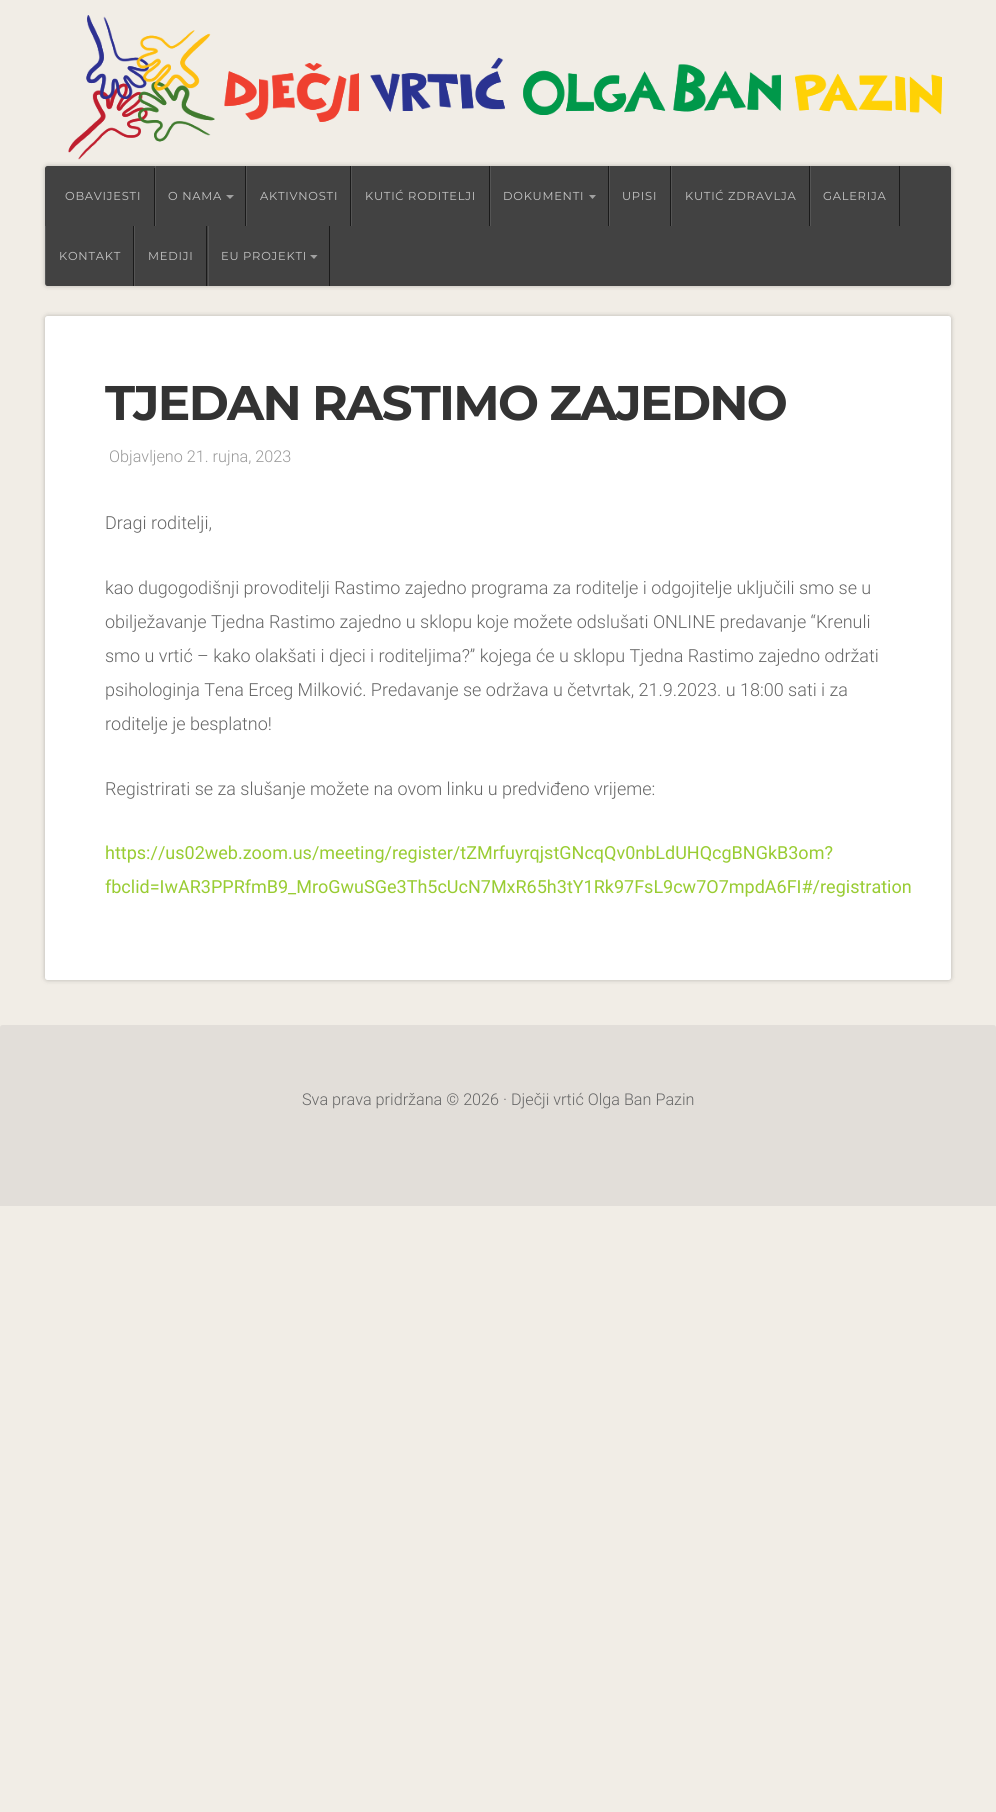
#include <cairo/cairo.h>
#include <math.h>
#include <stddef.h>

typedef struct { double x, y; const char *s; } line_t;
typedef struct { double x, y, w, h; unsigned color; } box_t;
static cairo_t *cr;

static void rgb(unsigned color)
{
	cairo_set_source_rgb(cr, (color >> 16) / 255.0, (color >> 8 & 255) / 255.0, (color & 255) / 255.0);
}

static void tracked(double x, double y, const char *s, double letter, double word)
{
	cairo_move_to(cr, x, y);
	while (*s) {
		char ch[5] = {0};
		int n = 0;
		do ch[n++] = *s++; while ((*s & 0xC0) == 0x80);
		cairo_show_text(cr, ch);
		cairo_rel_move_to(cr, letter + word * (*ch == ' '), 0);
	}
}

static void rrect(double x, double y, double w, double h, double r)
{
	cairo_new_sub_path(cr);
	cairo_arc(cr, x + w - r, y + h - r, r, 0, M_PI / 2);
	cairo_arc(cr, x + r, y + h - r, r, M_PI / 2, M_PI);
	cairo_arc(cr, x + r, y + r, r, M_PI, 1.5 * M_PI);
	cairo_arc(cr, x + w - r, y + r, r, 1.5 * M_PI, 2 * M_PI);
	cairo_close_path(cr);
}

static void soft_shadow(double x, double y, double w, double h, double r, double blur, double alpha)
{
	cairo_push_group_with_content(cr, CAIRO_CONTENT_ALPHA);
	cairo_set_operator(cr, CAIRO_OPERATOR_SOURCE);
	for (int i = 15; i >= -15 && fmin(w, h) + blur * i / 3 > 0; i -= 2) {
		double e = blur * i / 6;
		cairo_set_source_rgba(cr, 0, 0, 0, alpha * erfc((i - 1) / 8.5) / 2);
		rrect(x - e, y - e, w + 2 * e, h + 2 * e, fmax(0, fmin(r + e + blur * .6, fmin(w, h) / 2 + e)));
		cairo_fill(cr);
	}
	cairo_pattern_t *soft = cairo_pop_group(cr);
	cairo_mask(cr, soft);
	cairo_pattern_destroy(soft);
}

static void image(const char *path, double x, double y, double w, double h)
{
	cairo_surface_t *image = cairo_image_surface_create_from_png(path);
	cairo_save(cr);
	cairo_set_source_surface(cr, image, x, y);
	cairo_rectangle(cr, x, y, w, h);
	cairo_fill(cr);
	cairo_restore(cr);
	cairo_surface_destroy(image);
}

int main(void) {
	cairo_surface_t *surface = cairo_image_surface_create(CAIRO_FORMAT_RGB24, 996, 1812);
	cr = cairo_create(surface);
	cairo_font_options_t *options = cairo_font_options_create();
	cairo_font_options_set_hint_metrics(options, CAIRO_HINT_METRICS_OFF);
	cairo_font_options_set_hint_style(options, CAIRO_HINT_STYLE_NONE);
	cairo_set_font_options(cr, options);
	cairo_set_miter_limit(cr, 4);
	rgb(0xf1ede6);
	cairo_paint(cr);
	image("img/1.png", 68, 15, 874, 145);
	image("img/2.png", 68, 15, 874, 145);
	rgb(0x000000);
	soft_shadow(45, 166, 906, 120, 2.5, 2.5, 0.24);
	rgb(0x424242);
	rrect(45, 166, 906, 120, 2.5);
	cairo_fill(cr);
	{
		static const box_t items[] = {
			{154, 168, 1, 58, 0x1a1a1a},
			{245, 166, 1, 60, 0x1a1a1a},
			{155, 166, 1, 60, 0x555555},
		};
		for (size_t i = 0; i < sizeof items / sizeof *items; i++) {
			rgb(items[i].color);
			cairo_rectangle(cr, items[i].x, items[i].y, items[i].w, items[i].h);
			cairo_fill(cr);
		}
	}
	rgb(0xa1a1a1);
	cairo_new_path(cr);
	cairo_move_to(cr, 226, 195);
	cairo_line_to(cr, 234, 195);
	cairo_line_to(cr, 230, 199);
	cairo_close_path(cr);
	cairo_fill(cr);
	{
		static const box_t items[] = {
			{350, 166, 1, 60, 0x1a1a1a},
			{246, 166, 1, 60, 0x555555},
			{489, 166, 1, 60, 0x1a1a1a},
			{351, 166, 1, 60, 0x555555},
			{608, 166, 1, 60, 0x1a1a1a},
			{490, 166, 1, 60, 0x555555},
		};
		for (size_t i = 0; i < sizeof items / sizeof *items; i++) {
			rgb(items[i].color);
			cairo_rectangle(cr, items[i].x, items[i].y, items[i].w, items[i].h);
			cairo_fill(cr);
		}
	}
	rgb(0xa1a1a1);
	cairo_new_path(cr);
	cairo_move_to(cr, 589, 195);
	cairo_line_to(cr, 596, 195);
	cairo_line_to(cr, 592.5, 199);
	cairo_close_path(cr);
	cairo_fill(cr);
	rgb(0x1a1a1a);
	cairo_rectangle(cr, 670, 166, 1, 60);
	cairo_fill(cr);
	rgb(0x555555);
	cairo_rectangle(cr, 609, 166, 1, 60);
	cairo_fill(cr);
	rgb(0x1a1a1a);
	cairo_rectangle(cr, 809, 166, 1, 60);
	cairo_fill(cr);
	rgb(0x555555);
	cairo_rectangle(cr, 671, 166, 1, 60);
	cairo_fill(cr);
	rgb(0x1a1a1a);
	cairo_rectangle(cr, 899, 166, 1, 60);
	cairo_fill(cr);
	rgb(0x555555);
	cairo_rectangle(cr, 810, 166, 1, 60);
	cairo_fill(cr);
	rgb(0x1a1a1a);
	cairo_rectangle(cr, 133, 226, 1, 60);
	cairo_fill(cr);
	cairo_set_source_rgba(cr, 1, 1, 1, 0.1);
	cairo_rectangle(cr, 45, 226, 1, 60);
	cairo_fill(cr);
	rgb(0x1a1a1a);
	cairo_rectangle(cr, 206, 226, 1, 60);
	cairo_fill(cr);
	rgb(0x555555);
	cairo_rectangle(cr, 134, 226, 1, 60);
	cairo_fill(cr);
	rgb(0x1a1a1a);
	cairo_rectangle(cr, 329, 226, 1, 60);
	cairo_fill(cr);
	rgb(0x555555);
	cairo_rectangle(cr, 208, 226, 1, 60);
	cairo_fill(cr);
	rgb(0xa1a1a1);
	cairo_new_path(cr);
	cairo_move_to(cr, 310, 255);
	cairo_line_to(cr, 317.5, 255);
	cairo_line_to(cr, 314, 259);
	cairo_close_path(cr);
	cairo_fill(cr);
	rgb(0x000000);
	soft_shadow(45, 316, 906, 664, 2.5, 2.5, 0.24);
	rgb(0xffffff);
	rrect(45, 316, 906, 664, 2.5);
	cairo_fill(cr);
	rgb(0xe2ded9);
	cairo_new_path(cr);
	cairo_move_to(cr, 2.5, 1025);
	cairo_line_to(cr, 993.5, 1025);
	cairo_curve_to(cr, 995, 1025, 996, 1026, 996, 1027.5);
	cairo_line_to(cr, 996, 1206);
	cairo_line_to(cr, 0, 1206);
	cairo_line_to(cr, 0, 1027.5);
	cairo_curve_to(cr, 0, 1026, 1, 1025, 2.5, 1025);
	cairo_close_path(cr);
	cairo_fill(cr);
	cairo_select_font_face(cr, "Montserrat", CAIRO_FONT_SLANT_NORMAL, CAIRO_FONT_WEIGHT_NORMAL);
	cairo_set_font_size(cr, 11.5);
	rgb(0xc6c6c6);
	{
		static const line_t items[] = {
			{65, 200, "OBAVIJESTI"},
			{168, 200, "O NAMA"},
			{260, 200, "AKTIVNOSTI"},
			{365, 200, "KUTIĆ RODITELJI"},
			{503, 200, "DOKUMENTI"},
			{622, 200, "UPISI"},
			{685, 200, "KUTIĆ ZDRAVLJA"},
			{823, 200, "GALERIJA"},
			{59, 260, "KONTAKT"},
			{148, 260, "MEDIJI"},
			{221, 260, "EU PROJEKTI"},
		};
		for (size_t i = 0; i < sizeof items / sizeof *items; i++) {
			tracked(items[i].x, items[i].y, items[i].s, 0.75, 0);
		}
	}
	cairo_select_font_face(cr, "Montserrat", CAIRO_FONT_SLANT_NORMAL, CAIRO_FONT_WEIGHT_BOLD);
	cairo_set_font_size(cr, 48.6);
	rgb(0x333333);
	tracked(105, 420, "TJEDAN RASTIMO ZAJEDNO", -1.75, 0);
	cairo_select_font_face(cr, "Roboto Light", CAIRO_FONT_SLANT_NORMAL, CAIRO_FONT_WEIGHT_NORMAL);
	cairo_set_font_size(cr, 16.2);
	rgb(0x999999);
	cairo_move_to(cr, 109, 462);
	cairo_show_text(cr, "Objavljeno 21. rujna, 2023");
	cairo_set_font_size(cr, 18);
	rgb(0x666666);
	{
		static const line_t items[] = {
			{105, 529, "Dragi roditelji,"},
			{105, 594, "kao dugogodišnji provoditelji Rastimo zajedno programa za roditelje i odgojitelje uključili smo se u"},
			{105, 628, "obilježavanje Tjedna Rastimo zajedno u sklopu koje možete odslušati ONLINE predavanje “Krenuli"},
			{105, 662, "smo u vrtić – kako olakšati i djeci i roditeljima?” kojega će u sklopu Tjedna Rastimo zajedno održati"},
			{105, 696, "psihologinja Tena Erceg Milković. Predavanje se održava u četvrtak, 21.9.2023. u 18:00 sati i za"},
			{105, 730, "roditelje je besplatno!"},
			{105, 795, "Registrirati se za slušanje možete na ovom linku u predviđeno vrijeme:"},
		};
		for (size_t i = 0; i < sizeof items / sizeof *items; i++) {
			cairo_move_to(cr, items[i].x, items[i].y);
			cairo_show_text(cr, items[i].s);
		}
	}
	cairo_select_font_face(cr, "Roboto", CAIRO_FONT_SLANT_NORMAL, CAIRO_FONT_WEIGHT_NORMAL);
	rgb(0x99cc33);
	cairo_move_to(cr, 105, 859);
	cairo_show_text(cr, "https://us02web.zoom.us/meeting/register/tZMrfuyrqjstGNcqQv0nbLdUHQcgBNGkB3om?");
	cairo_move_to(cr, 105, 893);
	cairo_show_text(cr, "fbclid=IwAR3PPRfmB9_MroGwuSGe3Th5cUcN7MxR65h3tY1Rk97FsL9cw7O7mpdA6FI#/registration");
	cairo_select_font_face(cr, "Roboto Light", CAIRO_FONT_SLANT_NORMAL, CAIRO_FONT_WEIGHT_NORMAL);
	cairo_set_font_size(cr, 16.2);
	rgb(0x666666);
	cairo_move_to(cr, 302, 1105);
	cairo_show_text(cr, "Sva prava pridržana © 2026 · Dječji vrtić Olga Ban Pazin");
	cairo_surface_write_to_png(surface, "page.png");
	cairo_font_options_destroy(options);
	cairo_destroy(cr);
	cairo_surface_destroy(surface);
	return 0;
}
